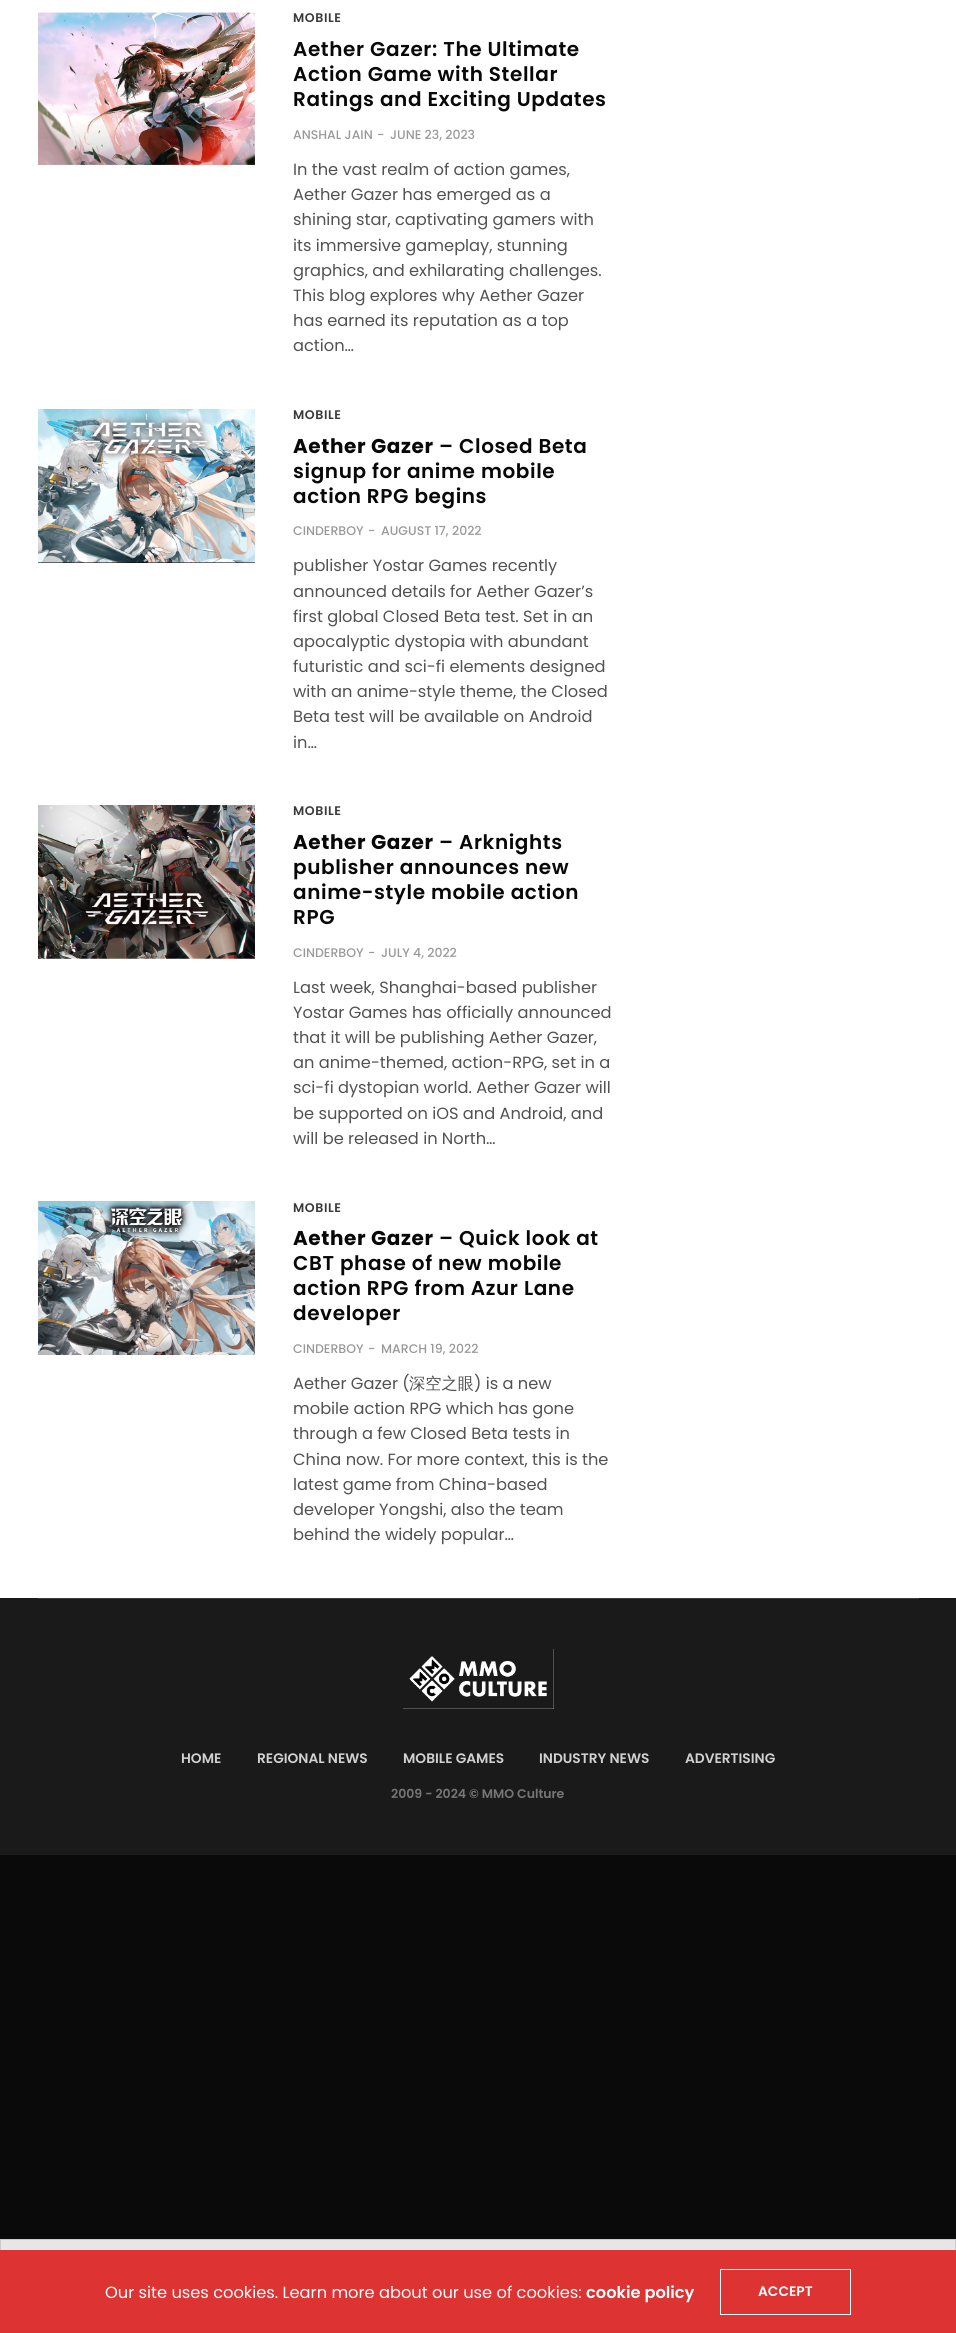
#include <cairo/cairo.h>
#include <math.h>
#include <stddef.h>

typedef struct { double x, y; const char *s; } line_t;
typedef struct { double x, y, w, h; unsigned color; } box_t;
static cairo_t *cr;

static void rgb(unsigned color)
{
	cairo_set_source_rgb(cr, (color >> 16) / 255.0, (color >> 8 & 255) / 255.0, (color & 255) / 255.0);
}

static void tracked(double x, double y, const char *s, double letter, double word)
{
	cairo_move_to(cr, x, y);
	while (*s) {
		char ch[5] = {0};
		int n = 0;
		do ch[n++] = *s++; while ((*s & 0xC0) == 0x80);
		cairo_show_text(cr, ch);
		cairo_rel_move_to(cr, letter + word * (*ch == ' '), 0);
	}
}

static void image(const char *path, double x, double y, double w, double h)
{
	cairo_surface_t *image = cairo_image_surface_create_from_png(path);
	cairo_save(cr);
	cairo_set_source_surface(cr, image, x, y);
	cairo_rectangle(cr, x, y, w, h);
	cairo_fill(cr);
	cairo_restore(cr);
	cairo_surface_destroy(image);
}

int main(void) {
	cairo_surface_t *surface = cairo_image_surface_create(CAIRO_FORMAT_RGB24, 956, 2333);
	cr = cairo_create(surface);
	cairo_font_options_t *options = cairo_font_options_create();
	cairo_font_options_set_hint_metrics(options, CAIRO_HINT_METRICS_OFF);
	cairo_font_options_set_hint_style(options, CAIRO_HINT_STYLE_NONE);
	cairo_set_font_options(cr, options);
	cairo_set_miter_limit(cr, 4);
	rgb(0x0a0a0a);
	cairo_paint(cr);
	rgb(0xffffff);
	cairo_rectangle(cr, 0, 0, 956, 1598);
	cairo_fill(cr);
	image("img/1.png", 38, 12, 217, 153);
	rgb(0x080808);
	cairo_rectangle(cr, 38, 562, 217, 1);
	cairo_fill(cr);
	image("img/2.png", 38, 409, 217, 154);
	image("img/3.png", 38, 805, 217, 154);
	image("img/4.png", 38, 1201, 217, 154);
	{
		static const box_t items[] = {
			{0, 1598, 956, 257, 0x1a1a1a},
			{38, 1598, 881, 1, 0x3c3c3c},
			{403, 1649, 151, 60, 0xffffff},
		};
		for (size_t i = 0; i < sizeof items / sizeof *items; i++) {
			rgb(items[i].color);
			cairo_rectangle(cr, items[i].x, items[i].y, items[i].w, items[i].h);
			cairo_fill(cr);
		}
	}
	image("img/5.png", 403, 1649, 151, 60);
	rgb(0xe6e6e6);
	cairo_rectangle(cr, 1, 2240, 954, 10);
	cairo_fill(cr);
	cairo_rectangle(cr, 0.5, 2239.5, 955, 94);
	rgb(0xcacaca);
	cairo_set_line_width(cr, 1);
	cairo_stroke(cr);
	rgb(0xdd3333);
	cairo_rectangle(cr, 0, 2250, 956, 83);
	cairo_fill(cr);
	cairo_rectangle(cr, 720.5, 2269.5, 130, 45);
	rgb(0xffffff);
	cairo_stroke(cr);
	cairo_select_font_face(cr, "Poppins SemiBold", CAIRO_FONT_SLANT_NORMAL, CAIRO_FONT_WEIGHT_NORMAL);
	cairo_set_font_size(cr, 12.5);
	rgb(0x393939);
	tracked(293, 22, "MOBILE", 0.6, 0);
	cairo_set_font_size(cr, 20);
	rgb(0x080808);
	{
		static const line_t items[] = {
			{293, 56, "Aether Gazer: The Ultimate"},
			{293, 81, "Action Game with Stellar"},
			{293, 106, "Ratings and Exciting Updates"},
		};
		for (size_t i = 0; i < sizeof items / sizeof *items; i++) {
			tracked(items[i].x, items[i].y, items[i].s, 0.6, 0);
		}
	}
	cairo_select_font_face(cr, "Poppins Medium", CAIRO_FONT_SLANT_NORMAL, CAIRO_FONT_WEIGHT_NORMAL);
	cairo_set_font_size(cr, 12.5);
	rgb(0x999999);
	{
		static const line_t items[] = {
			{293, 139, "ANSHAL JAIN"},
			{377, 139, "-"},
			{390, 139, "JUNE 23, 2023"},
		};
		for (size_t i = 0; i < sizeof items / sizeof *items; i++) {
			cairo_move_to(cr, items[i].x, items[i].y);
			cairo_show_text(cr, items[i].s);
		}
	}
	cairo_select_font_face(cr, "Poppins", CAIRO_FONT_SLANT_NORMAL, CAIRO_FONT_WEIGHT_NORMAL);
	cairo_set_font_size(cr, 16.25);
	rgb(0x525252);
	{
		static const line_t items[] = {
			{293, 175, "In the vast realm of action games,"},
			{293, 200, "Aether Gazer has emerged as a"},
			{293, 225, "shining star, captivating gamers with"},
			{293, 251, "its immersive gameplay, stunning"},
			{293, 276, "graphics, and exhilarating challenges."},
			{293, 301, "This blog explores why Aether Gazer"},
			{293, 326, "has earned its reputation as a top"},
			{293, 351, "action…"},
		};
		for (size_t i = 0; i < sizeof items / sizeof *items; i++) {
			cairo_move_to(cr, items[i].x, items[i].y);
			cairo_show_text(cr, items[i].s);
		}
	}
	cairo_select_font_face(cr, "Poppins SemiBold", CAIRO_FONT_SLANT_NORMAL, CAIRO_FONT_WEIGHT_NORMAL);
	cairo_set_font_size(cr, 12.5);
	rgb(0x393939);
	tracked(293, 419, "MOBILE", 0.6, 0);
	cairo_select_font_face(cr, "Poppins", CAIRO_FONT_SLANT_NORMAL, CAIRO_FONT_WEIGHT_BOLD);
	cairo_set_font_size(cr, 20);
	rgb(0x080808);
	tracked(293, 453, "Aether Gazer", 0.6, 0);
	cairo_select_font_face(cr, "Poppins SemiBold", CAIRO_FONT_SLANT_NORMAL, CAIRO_FONT_WEIGHT_NORMAL);
	{
		static const line_t items[] = {
			{439, 453, "– Closed Beta"},
			{293, 478, "signup for anime mobile"},
			{293, 503, "action RPG begins"},
		};
		for (size_t i = 0; i < sizeof items / sizeof *items; i++) {
			tracked(items[i].x, items[i].y, items[i].s, 0.6, 0);
		}
	}
	cairo_select_font_face(cr, "Poppins Medium", CAIRO_FONT_SLANT_NORMAL, CAIRO_FONT_WEIGHT_NORMAL);
	cairo_set_font_size(cr, 12.5);
	rgb(0x999999);
	{
		static const line_t items[] = {
			{293, 535, "CINDERBOY"},
			{368, 535, "-"},
			{381, 535, "AUGUST 17, 2022"},
		};
		for (size_t i = 0; i < sizeof items / sizeof *items; i++) {
			cairo_move_to(cr, items[i].x, items[i].y);
			cairo_show_text(cr, items[i].s);
		}
	}
	cairo_select_font_face(cr, "Poppins", CAIRO_FONT_SLANT_NORMAL, CAIRO_FONT_WEIGHT_NORMAL);
	cairo_set_font_size(cr, 16.25);
	rgb(0x525252);
	{
		static const line_t items[] = {
			{293, 571, "publisher Yostar Games recently"},
			{293, 597, "announced details for Aether Gazer’s"},
			{293, 622, "first global Closed Beta test. Set in an"},
			{293, 647, "apocalyptic dystopia with abundant"},
			{293, 672, "futuristic and sci-fi elements designed"},
			{293, 697, "with an anime-style theme, the Closed"},
			{293, 722, "Beta test will be available on Android"},
			{293, 748, "in…"},
		};
		for (size_t i = 0; i < sizeof items / sizeof *items; i++) {
			cairo_move_to(cr, items[i].x, items[i].y);
			cairo_show_text(cr, items[i].s);
		}
	}
	cairo_select_font_face(cr, "Poppins SemiBold", CAIRO_FONT_SLANT_NORMAL, CAIRO_FONT_WEIGHT_NORMAL);
	cairo_set_font_size(cr, 12.5);
	rgb(0x393939);
	tracked(293, 815, "MOBILE", 0.6, 0);
	cairo_select_font_face(cr, "Poppins", CAIRO_FONT_SLANT_NORMAL, CAIRO_FONT_WEIGHT_BOLD);
	cairo_set_font_size(cr, 20);
	rgb(0x080808);
	tracked(293, 849, "Aether Gazer", 0.6, 0);
	cairo_select_font_face(cr, "Poppins SemiBold", CAIRO_FONT_SLANT_NORMAL, CAIRO_FONT_WEIGHT_NORMAL);
	{
		static const line_t items[] = {
			{439, 849, "– Arknights"},
			{293, 874, "publisher announces new"},
			{293, 899, "anime-style mobile action"},
			{293, 924, "RPG"},
		};
		for (size_t i = 0; i < sizeof items / sizeof *items; i++) {
			tracked(items[i].x, items[i].y, items[i].s, 0.6, 0);
		}
	}
	cairo_select_font_face(cr, "Poppins Medium", CAIRO_FONT_SLANT_NORMAL, CAIRO_FONT_WEIGHT_NORMAL);
	cairo_set_font_size(cr, 12.5);
	rgb(0x999999);
	{
		static const line_t items[] = {
			{293, 957, "CINDERBOY"},
			{368, 957, "-"},
			{381, 957, "JULY 4, 2022"},
		};
		for (size_t i = 0; i < sizeof items / sizeof *items; i++) {
			cairo_move_to(cr, items[i].x, items[i].y);
			cairo_show_text(cr, items[i].s);
		}
	}
	cairo_select_font_face(cr, "Poppins", CAIRO_FONT_SLANT_NORMAL, CAIRO_FONT_WEIGHT_NORMAL);
	cairo_set_font_size(cr, 16.25);
	rgb(0x525252);
	{
		static const line_t items[] = {
			{293, 993, "Last week, Shanghai-based publisher"},
			{293, 1018, "Yostar Games has officially announced"},
			{293, 1043, "that it will be publishing Aether Gazer,"},
			{293, 1068, "an anime-themed, action-RPG, set in a"},
			{293, 1093, "sci-fi dystopian world. Aether Gazer will"},
			{293, 1119, "be supported on iOS and Android, and"},
			{293, 1144, "will be released in North…"},
		};
		for (size_t i = 0; i < sizeof items / sizeof *items; i++) {
			cairo_move_to(cr, items[i].x, items[i].y);
			cairo_show_text(cr, items[i].s);
		}
	}
	cairo_select_font_face(cr, "Poppins SemiBold", CAIRO_FONT_SLANT_NORMAL, CAIRO_FONT_WEIGHT_NORMAL);
	cairo_set_font_size(cr, 12.5);
	rgb(0x393939);
	tracked(293, 1212, "MOBILE", 0.6, 0);
	cairo_select_font_face(cr, "Poppins", CAIRO_FONT_SLANT_NORMAL, CAIRO_FONT_WEIGHT_BOLD);
	cairo_set_font_size(cr, 20);
	rgb(0x080808);
	tracked(293, 1245, "Aether Gazer", 0.6, 0);
	cairo_select_font_face(cr, "Poppins SemiBold", CAIRO_FONT_SLANT_NORMAL, CAIRO_FONT_WEIGHT_NORMAL);
	{
		static const line_t items[] = {
			{439, 1245, "– Quick look at"},
			{293, 1270, "CBT phase of new mobile"},
			{293, 1295, "action RPG from Azur Lane"},
			{293, 1320, "developer"},
		};
		for (size_t i = 0; i < sizeof items / sizeof *items; i++) {
			tracked(items[i].x, items[i].y, items[i].s, 0.6, 0);
		}
	}
	cairo_select_font_face(cr, "Poppins Medium", CAIRO_FONT_SLANT_NORMAL, CAIRO_FONT_WEIGHT_NORMAL);
	cairo_set_font_size(cr, 12.5);
	rgb(0x999999);
	{
		static const line_t items[] = {
			{293, 1353, "CINDERBOY"},
			{368, 1353, "-"},
			{381, 1353, "MARCH 19, 2022"},
		};
		for (size_t i = 0; i < sizeof items / sizeof *items; i++) {
			cairo_move_to(cr, items[i].x, items[i].y);
			cairo_show_text(cr, items[i].s);
		}
	}
	cairo_select_font_face(cr, "Poppins", CAIRO_FONT_SLANT_NORMAL, CAIRO_FONT_WEIGHT_NORMAL);
	cairo_set_font_size(cr, 16.25);
	rgb(0x525252);
	cairo_move_to(cr, 293, 1389);
	cairo_show_text(cr, "Aether Gazer (");
	cairo_select_font_face(cr, "WenQuanYi Zen Hei Medium", CAIRO_FONT_SLANT_NORMAL, CAIRO_FONT_WEIGHT_NORMAL);
	cairo_move_to(cr, 409, 1389);
	cairo_show_text(cr, "深空之眼");
	cairo_select_font_face(cr, "Poppins", CAIRO_FONT_SLANT_NORMAL, CAIRO_FONT_WEIGHT_NORMAL);
	{
		static const line_t items[] = {
			{474, 1389, ") is a new"},
			{293, 1414, "mobile action RPG which has gone"},
			{293, 1439, "through a few Closed Beta tests in"},
			{293, 1465, "China now. For more context, this is the"},
			{293, 1490, "latest game from China-based"},
			{293, 1515, "developer Yongshi, also the team"},
			{293, 1540, "behind the widely popular…"},
		};
		for (size_t i = 0; i < sizeof items / sizeof *items; i++) {
			cairo_move_to(cr, items[i].x, items[i].y);
			cairo_show_text(cr, items[i].s);
		}
	}
	cairo_select_font_face(cr, "Poppins SemiBold", CAIRO_FONT_SLANT_NORMAL, CAIRO_FONT_WEIGHT_NORMAL);
	cairo_set_font_size(cr, 13.75);
	rgb(0xd1d1d1);
	{
		static const line_t items[] = {
			{181, 1763, "HOME"},
			{257, 1763, "REGIONAL NEWS"},
			{403, 1763, "MOBILE GAMES"},
			{539, 1763, "INDUSTRY NEWS"},
			{685, 1763, "ADVERTISING"},
		};
		for (size_t i = 0; i < sizeof items / sizeof *items; i++) {
			cairo_move_to(cr, items[i].x, items[i].y);
			cairo_show_text(cr, items[i].s);
		}
	}
	cairo_set_font_size(cr, 12.5);
	rgb(0x767676);
	cairo_move_to(cr, 391, 1798);
	cairo_show_text(cr, "2009 - 2024 © MMO Culture");
	cairo_select_font_face(cr, "Poppins", CAIRO_FONT_SLANT_NORMAL, CAIRO_FONT_WEIGHT_NORMAL);
	cairo_set_font_size(cr, 16.25);
	rgb(0xffffff);
	cairo_move_to(cr, 105, 2298);
	cairo_show_text(cr, "Our site uses cookies. Learn more about our use of cookies:");
	cairo_select_font_face(cr, "Poppins SemiBold", CAIRO_FONT_SLANT_NORMAL, CAIRO_FONT_WEIGHT_NORMAL);
	cairo_move_to(cr, 586, 2298);
	cairo_show_text(cr, "cookie policy");
	cairo_set_font_size(cr, 13.75);
	cairo_move_to(cr, 758, 2296);
	cairo_show_text(cr, "ACCEPT");
	cairo_surface_write_to_png(surface, "page.png");
	cairo_font_options_destroy(options);
	cairo_destroy(cr);
	cairo_surface_destroy(surface);
	return 0;
}
